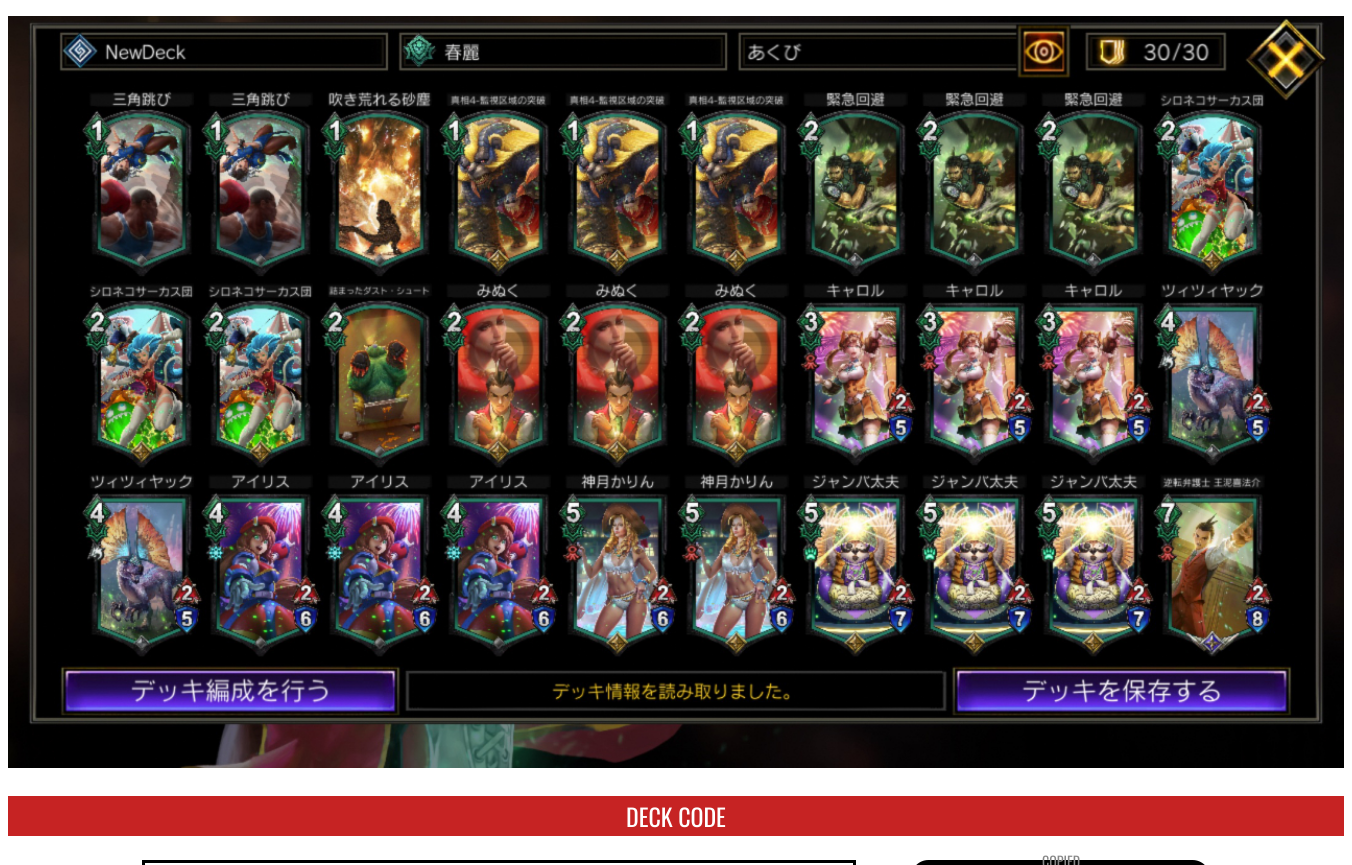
#include <cairo/cairo.h>
#include <math.h>
#include <stddef.h>

static cairo_t *cr;

static void rgb(unsigned color)
{
	cairo_set_source_rgb(cr, (color >> 16) / 255.0, (color >> 8 & 255) / 255.0, (color & 255) / 255.0);
}

static void rrect(double x, double y, double w, double h, double r)
{
	cairo_new_sub_path(cr);
	cairo_arc(cr, x + w - r, y + h - r, r, 0, M_PI / 2);
	cairo_arc(cr, x + r, y + h - r, r, M_PI / 2, M_PI);
	cairo_arc(cr, x + r, y + r, r, M_PI, 1.5 * M_PI);
	cairo_arc(cr, x + w - r, y + r, r, 1.5 * M_PI, 2 * M_PI);
	cairo_close_path(cr);
}

static void image(const char *path, double x, double y, double w, double h)
{
	cairo_surface_t *image = cairo_image_surface_create_from_png(path);
	cairo_save(cr);
	cairo_set_source_surface(cr, image, x, y);
	cairo_rectangle(cr, x, y, w, h);
	cairo_fill(cr);
	cairo_restore(cr);
	cairo_surface_destroy(image);
}

int main(void) {
	cairo_surface_t *surface = cairo_image_surface_create(CAIRO_FORMAT_RGB24, 1352, 865);
	cr = cairo_create(surface);
	cairo_font_options_t *options = cairo_font_options_create();
	cairo_font_options_set_hint_metrics(options, CAIRO_HINT_METRICS_OFF);
	cairo_font_options_set_hint_style(options, CAIRO_HINT_STYLE_NONE);
	cairo_set_font_options(cr, options);
	cairo_set_miter_limit(cr, 4);
	rgb(0xffffff);
	cairo_paint(cr);
	image("img/1.png", 8, 16, 1336, 752);
	rgb(0xc62323);
	cairo_rectangle(cr, 8, 796, 1336, 40);
	cairo_fill(cr);
	cairo_rectangle(cr, 143.5, 861.5, 711, 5);
	rgb(0x000000);
	cairo_set_line_width(cr, 3);
	cairo_stroke(cr);
	rrect(911, 860, 299, 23, 17.5);
	cairo_fill(cr);
	cairo_select_font_face(cr, "Oswald", CAIRO_FONT_SLANT_NORMAL, CAIRO_FONT_WEIGHT_NORMAL);
	cairo_set_font_size(cr, 24);
	rgb(0xffffff);
	cairo_move_to(cr, 626, 827);
	cairo_show_text(cr, "DECK CODE");
	cairo_set_font_size(cr, 14);
	rgb(0x878787);
	cairo_move_to(cr, 1042, 867);
	cairo_show_text(cr, "COPIED");
	cairo_surface_write_to_png(surface, "page.png");
	cairo_font_options_destroy(options);
	cairo_destroy(cr);
	cairo_surface_destroy(surface);
	return 0;
}
